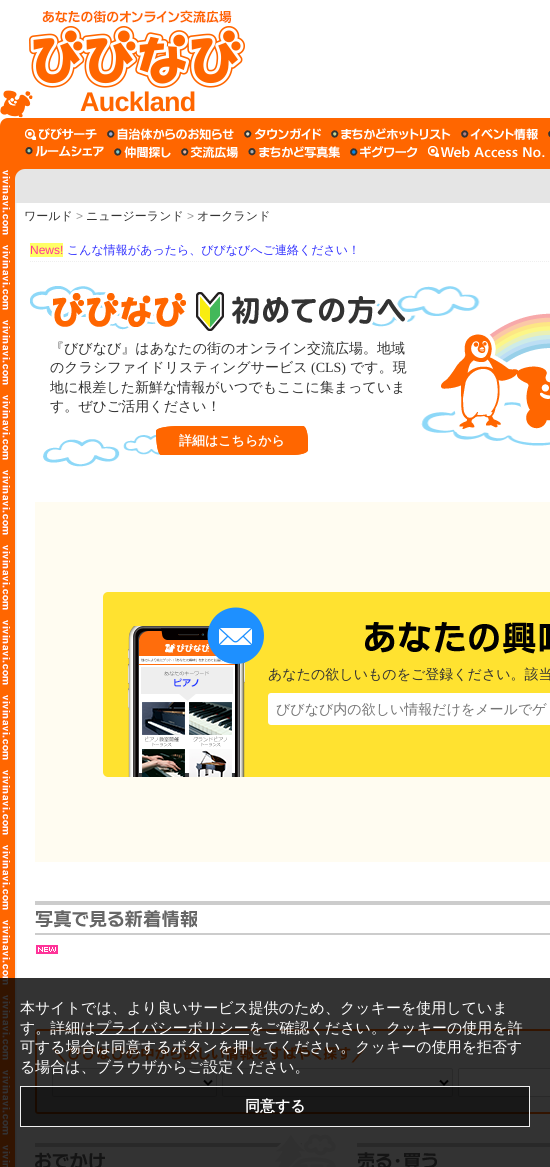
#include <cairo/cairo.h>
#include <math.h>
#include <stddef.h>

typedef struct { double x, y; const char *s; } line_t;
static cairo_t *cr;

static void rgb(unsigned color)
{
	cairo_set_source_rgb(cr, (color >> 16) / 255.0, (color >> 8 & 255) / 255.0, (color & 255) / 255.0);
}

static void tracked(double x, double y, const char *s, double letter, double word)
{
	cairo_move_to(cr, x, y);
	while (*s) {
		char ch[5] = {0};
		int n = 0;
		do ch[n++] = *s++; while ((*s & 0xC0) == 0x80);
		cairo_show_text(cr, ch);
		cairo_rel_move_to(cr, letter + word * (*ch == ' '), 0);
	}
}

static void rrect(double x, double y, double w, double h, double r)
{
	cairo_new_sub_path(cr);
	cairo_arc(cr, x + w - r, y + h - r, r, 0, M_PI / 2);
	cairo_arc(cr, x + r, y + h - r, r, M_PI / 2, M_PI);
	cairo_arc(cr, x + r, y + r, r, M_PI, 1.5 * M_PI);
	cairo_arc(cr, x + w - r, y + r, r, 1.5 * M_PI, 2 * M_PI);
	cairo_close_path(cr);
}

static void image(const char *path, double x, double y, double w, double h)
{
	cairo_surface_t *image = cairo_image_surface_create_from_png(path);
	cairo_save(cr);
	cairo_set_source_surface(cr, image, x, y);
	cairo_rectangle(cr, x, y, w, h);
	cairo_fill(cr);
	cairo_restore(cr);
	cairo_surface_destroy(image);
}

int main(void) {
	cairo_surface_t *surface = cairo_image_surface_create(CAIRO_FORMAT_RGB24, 550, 1167);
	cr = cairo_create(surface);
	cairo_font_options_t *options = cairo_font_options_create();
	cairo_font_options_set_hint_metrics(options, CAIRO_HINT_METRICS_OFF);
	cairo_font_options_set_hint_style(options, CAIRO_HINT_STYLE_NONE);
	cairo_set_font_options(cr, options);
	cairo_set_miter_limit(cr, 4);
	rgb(0xffffff);
	cairo_paint(cr);
	image("img/1.png", 0, 169, 17, 998);
	image("img/2.png", 0, 10, 245, 108);
	rgb(0xff6600);
	cairo_new_path(cr);
	cairo_move_to(cr, 8, 118);
	cairo_line_to(cr, 550, 118);
	cairo_curve_to(cr, 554.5, 118, 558, 121.5, 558, 126);
	cairo_line_to(cr, 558, 161);
	cairo_curve_to(cr, 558, 165.5, 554.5, 169, 550, 169);
	cairo_line_to(cr, 0, 169);
	cairo_line_to(cr, 0, 126);
	cairo_curve_to(cr, 0, 121.5, 3.5, 118, 8, 118);
	cairo_close_path(cr);
	cairo_fill(cr);
	image("img/3.png", 25, 128, 72, 12);
	image("img/4.png", 107, 128, 127, 12);
	image("img/5.png", 244, 128, 77, 12);
	image("img/6.png", 331, 128, 120, 12);
	image("img/7.png", 461, 128, 77, 12);
	image("img/8.png", 548, 131, 2, 6);
	image("img/9.png", 25, 146, 79, 11);
	image("img/10.png", 114, 146, 57, 12);
	image("img/11.png", 181, 146, 57, 12);
	image("img/12.png", 248, 146, 92, 12);
	image("img/13.png", 350, 146, 68, 12);
	image("img/14.png", 428, 146, 117, 12);
	rgb(0xe5e5e5);
	cairo_rectangle(cr, 15, 169, 535, 34);
	cairo_fill(cr);
	rgb(0xff6600);
	cairo_rectangle(cr, 15, 169, 10, 10);
	cairo_fill(cr);
	rgb(0xe5e5e5);
	cairo_new_path(cr);
	cairo_move_to(cr, 25, 169);
	cairo_line_to(cr, 25, 179);
	cairo_line_to(cr, 15, 179);
	cairo_curve_to(cr, 15, 173.5, 19.5, 169, 25, 169);
	cairo_close_path(cr);
	cairo_fill(cr);
	cairo_new_path(cr);
	cairo_move_to(cr, 30, 261.5);
	cairo_line_to(cr, 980, 261.5);
	rgb(0xefefef);
	cairo_set_line_width(cr, 1);
	cairo_set_dash(cr, (double[]){1, 1}, 2, 0);
	cairo_stroke(cr);
	rgb(0xffff66);
	cairo_rectangle(cr, 30, 243, 33, 14);
	cairo_fill(cr);
	image("img/15.png", 30, 286, 520, 181);
	image("img/16.png", 441, 313, 109, 123);
	image("img/17.png", 51, 290, 357, 41);
	rgb(0xff6600);
	cairo_new_path(cr);
	cairo_move_to(cr, 180, 426);
	cairo_line_to(cr, 303, 426);
	cairo_curve_to(cr, 306, 426, 308, 433, 308, 442);
	cairo_line_to(cr, 308, 450);
	cairo_curve_to(cr, 308, 453, 301, 455, 292, 455);
	cairo_line_to(cr, 161, 455);
	cairo_curve_to(cr, 158, 455, 156, 444, 156, 431);
	cairo_curve_to(cr, 156, 428, 167, 426, 180, 426);
	cairo_close_path(cr);
	cairo_fill(cr);
	cairo_new_path(cr);
	cairo_move_to(cr, 179.5, 427.5);
	cairo_line_to(cr, 302.5, 427.5);
	cairo_curve_to(cr, 304.5, 427.5, 306.5, 434, 306.5, 441.5);
	cairo_line_to(cr, 306.5, 449.5);
	cairo_curve_to(cr, 306.5, 451.5, 300, 453.5, 292.5, 453.5);
	cairo_line_to(cr, 161.5, 453.5);
	cairo_curve_to(cr, 159.5, 453.5, 157.5, 443.5, 157.5, 431.5);
	cairo_curve_to(cr, 157.5, 429.5, 167.5, 427.5, 179.5, 427.5);
	cairo_close_path(cr);
	cairo_set_line_width(cr, 3);
	cairo_set_dash(cr, NULL, 0, 0);
	cairo_stroke(cr);
	rgb(0xfffcf1);
	cairo_rectangle(cr, 35, 502, 515, 360);
	cairo_fill(cr);
	rgb(0xffe230);
	rrect(103, 592, 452, 185, 5);
	cairo_fill(cr);
	image("img/18.png", 128, 607, 136, 170);
	image("img/19.png", 365, 622, 185, 32);
	rgb(0xffffff);
	rrect(268, 693, 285, 32, 3);
	cairo_fill(cr);
	image("img/20.png", 35, 901, 515, 34);
	image("img/21.png", 35, 910, 162, 18);
	image("img/22.png", 36, 945, 22, 9);
	rgb(0xf7f6f5);
	rrect(36, 1030, 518, 83, 2);
	cairo_fill_preserve(cr);
	rgb(0xff6600);
	cairo_set_line_width(cr, 2);
	cairo_stroke(cr);
	image("img/23.png", 52, 1046, 314, 17);
	rgb(0xefefef);
	rrect(52.5, 1068.5, 164, 28, 1.5);
	cairo_fill_preserve(cr);
	rgb(0xcccccc);
	cairo_set_line_width(cr, 1);
	cairo_stroke(cr);
	cairo_new_path(cr);
	cairo_move_to(cr, 204, 1080.5);
	cairo_line_to(cr, 208, 1084.5);
	cairo_line_to(cr, 212, 1080.5);
	rgb(0x000000);
	cairo_set_line_width(cr, 2);
	cairo_stroke(cr);
	rgb(0xefefef);
	rrect(222.5, 1068.5, 230, 28, 1.5);
	cairo_fill_preserve(cr);
	rgb(0xcccccc);
	cairo_set_line_width(cr, 1);
	cairo_stroke(cr);
	cairo_new_path(cr);
	cairo_move_to(cr, 440, 1080.5);
	cairo_line_to(cr, 444, 1084.5);
	cairo_line_to(cr, 448, 1080.5);
	rgb(0x000000);
	cairo_set_line_width(cr, 2);
	cairo_stroke(cr);
	rgb(0xffffff);
	rrect(458.5, 1068.5, 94, 28, 1.5);
	cairo_fill_preserve(cr);
	rgb(0xcccccc);
	cairo_set_line_width(cr, 1);
	cairo_stroke(cr);
	cairo_rectangle(cr, 35, 1143, 287, 4);
	cairo_fill(cr);
	image("img/24.png", 275, 1134, 62, 33);
	image("img/25.png", 35, 1152, 70, 15);
	cairo_rectangle(cr, 357, 1143, 193, 4);
	cairo_fill(cr);
	image("img/26.png", 357, 1152, 80, 15);
	cairo_set_source_rgba(cr, 0, 0, 0, 0.8);
	cairo_rectangle(cr, 0, 978, 550, 189);
	cairo_fill(cr);
	rgb(0xffffff);
	cairo_rectangle(cr, 96, 1034, 153, 1);
	cairo_fill(cr);
	cairo_set_source_rgba(cr, 0, 0, 0, 0.5);
	cairo_rectangle(cr, 20.5, 1086.5, 509, 40);
	cairo_fill_preserve(cr);
	rgb(0xefefef);
	cairo_stroke(cr);
	cairo_select_font_face(cr, "Liberation Sans", CAIRO_FONT_SLANT_NORMAL, CAIRO_FONT_WEIGHT_BOLD);
	cairo_set_font_size(cr, 27);
	rgb(0xff6600);
	tracked(80, 111, "Auckland", -0.75, 0);
	cairo_select_font_face(cr, "WenQuanYi Zen Hei Medium", CAIRO_FONT_SLANT_NORMAL, CAIRO_FONT_WEIGHT_NORMAL);
	cairo_set_font_size(cr, 12);
	rgb(0x333333);
	cairo_move_to(cr, 24, 220);
	cairo_show_text(cr, "ワールド");
	cairo_select_font_face(cr, "Liberation Sans", CAIRO_FONT_SLANT_NORMAL, CAIRO_FONT_WEIGHT_NORMAL);
	rgb(0x999999);
	cairo_move_to(cr, 76, 220);
	cairo_show_text(cr, ">");
	cairo_select_font_face(cr, "WenQuanYi Zen Hei Medium", CAIRO_FONT_SLANT_NORMAL, CAIRO_FONT_WEIGHT_NORMAL);
	rgb(0x333333);
	cairo_move_to(cr, 86, 220);
	cairo_show_text(cr, "ニュージーランド");
	cairo_select_font_face(cr, "Liberation Sans", CAIRO_FONT_SLANT_NORMAL, CAIRO_FONT_WEIGHT_NORMAL);
	rgb(0x999999);
	cairo_move_to(cr, 187, 220);
	cairo_show_text(cr, ">");
	cairo_select_font_face(cr, "WenQuanYi Zen Hei Medium", CAIRO_FONT_SLANT_NORMAL, CAIRO_FONT_WEIGHT_NORMAL);
	rgb(0x333333);
	cairo_move_to(cr, 197, 220);
	cairo_show_text(cr, "オークランド");
	cairo_select_font_face(cr, "Liberation Sans", CAIRO_FONT_SLANT_NORMAL, CAIRO_FONT_WEIGHT_NORMAL);
	rgb(0xff3399);
	cairo_move_to(cr, 30, 254);
	cairo_show_text(cr, "News!");
	cairo_select_font_face(cr, "WenQuanYi Zen Hei Medium", CAIRO_FONT_SLANT_NORMAL, CAIRO_FONT_WEIGHT_NORMAL);
	rgb(0x3333ff);
	cairo_move_to(cr, 67, 254);
	cairo_show_text(cr, "こんな情報があったら、びびなびへご連絡ください！");
	cairo_set_font_size(cr, 14);
	rgb(0x333333);
	cairo_move_to(cr, 50, 353);
	cairo_show_text(cr, "『びびなび』はあなたの街のオンライン交流広場。地域");
	cairo_move_to(cr, 50, 372);
	cairo_show_text(cr, "のクラシファイドリスティングサービス");
	cairo_select_font_face(cr, "Liberation Serif", CAIRO_FONT_SLANT_NORMAL, CAIRO_FONT_WEIGHT_NORMAL);
	cairo_move_to(cr, 311, 372);
	cairo_show_text(cr, "(CLS)");
	cairo_select_font_face(cr, "WenQuanYi Zen Hei Medium", CAIRO_FONT_SLANT_NORMAL, CAIRO_FONT_WEIGHT_NORMAL);
	{
		static const line_t items[] = {
			{350, 372, "です。現"},
			{50, 392, "地に根差した新鮮な情報がいつでもここに集まっていま"},
			{50, 411, "す。ぜひご活用ください！"},
		};
		for (size_t i = 0; i < sizeof items / sizeof *items; i++) {
			cairo_move_to(cr, items[i].x, items[i].y);
			cairo_show_text(cr, items[i].s);
		}
	}
	cairo_select_font_face(cr, "WenQuanYi Zen Hei", CAIRO_FONT_SLANT_NORMAL, CAIRO_FONT_WEIGHT_BOLD);
	cairo_set_font_size(cr, 13);
	rgb(0xffffff);
	cairo_move_to(cr, 179, 445);
	cairo_show_text(cr, "詳細はこちらから");
	cairo_select_font_face(cr, "WenQuanYi Zen Hei Medium", CAIRO_FONT_SLANT_NORMAL, CAIRO_FONT_WEIGHT_NORMAL);
	cairo_set_font_size(cr, 14);
	rgb(0x333333);
	cairo_move_to(cr, 268, 679);
	cairo_show_text(cr, "あなたの欲しいものをご登録ください。該当");
	rgb(0x757575);
	cairo_move_to(cr, 276, 714);
	cairo_show_text(cr, "びびなび内の欲しい情報だけをメールでゲ");
	cairo_set_font_size(cr, 15);
	rgb(0xffffff);
	{
		static const line_t items[] = {
			{20, 1013, "本サイトでは、より良いサービス提供のため、クッキーを使用していま"},
			{20, 1033, "す。詳細は"},
			{96, 1033, "プライバシーポリシーをご確認ください。クッキーの使用を許"},
			{20, 1052, "可する場合は同意するボタンを押してください。クッキーの使用を拒否す"},
			{20, 1072, "る場合は、ブラウザからご設定ください。"},
		};
		for (size_t i = 0; i < sizeof items / sizeof *items; i++) {
			cairo_move_to(cr, items[i].x, items[i].y);
			cairo_show_text(cr, items[i].s);
		}
	}
	cairo_select_font_face(cr, "WenQuanYi Zen Hei", CAIRO_FONT_SLANT_NORMAL, CAIRO_FONT_WEIGHT_BOLD);
	cairo_move_to(cr, 245, 1111);
	cairo_show_text(cr, "同意する");
	cairo_surface_write_to_png(surface, "page.png");
	cairo_font_options_destroy(options);
	cairo_destroy(cr);
	cairo_surface_destroy(surface);
	return 0;
}
